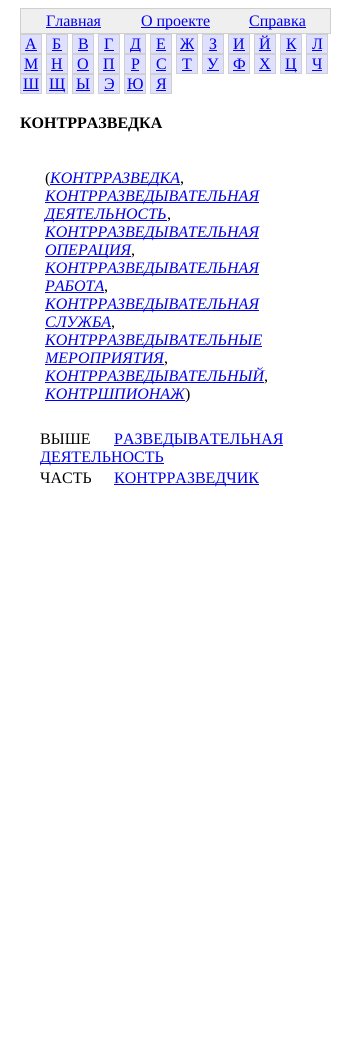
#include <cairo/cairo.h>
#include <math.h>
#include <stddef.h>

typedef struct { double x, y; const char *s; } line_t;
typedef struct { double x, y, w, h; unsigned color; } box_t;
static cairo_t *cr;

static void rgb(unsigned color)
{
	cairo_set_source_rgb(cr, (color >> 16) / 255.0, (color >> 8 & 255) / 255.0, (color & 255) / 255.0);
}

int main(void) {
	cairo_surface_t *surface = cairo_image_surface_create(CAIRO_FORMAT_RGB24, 351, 1039);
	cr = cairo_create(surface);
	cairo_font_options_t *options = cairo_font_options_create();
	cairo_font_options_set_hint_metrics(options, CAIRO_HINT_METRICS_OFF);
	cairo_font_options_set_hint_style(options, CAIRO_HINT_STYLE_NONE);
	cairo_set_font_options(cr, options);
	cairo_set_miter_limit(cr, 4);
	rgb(0xffffff);
	cairo_paint(cr);
	rgb(0xefefef);
	cairo_rectangle(cr, 20.5, 8.5, 310, 25);
	cairo_fill_preserve(cr);
	rgb(0xcfcfcf);
	cairo_set_line_width(cr, 1);
	cairo_stroke(cr);
	{
		static const box_t items[] = {
			{46, 27, 55, 1, 0x0000ee},
			{141, 27, 69, 1, 0x0000ee},
			{249, 27, 57, 1, 0x0000ee},
		};
		for (size_t i = 0; i < sizeof items / sizeof *items; i++) {
			rgb(items[i].color);
			cairo_rectangle(cr, items[i].x, items[i].y, items[i].w, items[i].h);
			cairo_fill(cr);
		}
	}
	rgb(0xdfdfff);
	cairo_rectangle(cr, 20.5, 34.5, 21, 19);
	cairo_fill_preserve(cr);
	rgb(0xcfcfcf);
	cairo_stroke(cr);
	rgb(0x0000ee);
	cairo_rectangle(cr, 25, 50, 12, 1);
	cairo_fill(cr);
	rgb(0xdfdfff);
	cairo_rectangle(cr, 46.5, 34.5, 21, 19);
	cairo_fill_preserve(cr);
	rgb(0xcfcfcf);
	cairo_stroke(cr);
	rgb(0x0000ee);
	cairo_rectangle(cr, 52, 50, 10, 1);
	cairo_fill(cr);
	rgb(0xdfdfff);
	cairo_rectangle(cr, 72.5, 34.5, 21, 19);
	cairo_fill_preserve(cr);
	rgb(0xcfcfcf);
	cairo_stroke(cr);
	rgb(0x0000ee);
	cairo_rectangle(cr, 78, 50, 10, 1);
	cairo_fill(cr);
	rgb(0xdfdfff);
	cairo_rectangle(cr, 98.5, 34.5, 21, 19);
	cairo_fill_preserve(cr);
	rgb(0xcfcfcf);
	cairo_stroke(cr);
	rgb(0x0000ee);
	cairo_rectangle(cr, 104, 50, 10, 1);
	cairo_fill(cr);
	rgb(0xdfdfff);
	cairo_rectangle(cr, 124.5, 34.5, 21, 19);
	cairo_fill_preserve(cr);
	rgb(0xcfcfcf);
	cairo_stroke(cr);
	rgb(0x0000ee);
	cairo_rectangle(cr, 130, 50, 10, 1);
	cairo_fill(cr);
	rgb(0xdfdfff);
	cairo_rectangle(cr, 150.5, 34.5, 21, 19);
	cairo_fill_preserve(cr);
	rgb(0xcfcfcf);
	cairo_stroke(cr);
	rgb(0x0000ee);
	cairo_rectangle(cr, 156, 50, 10, 1);
	cairo_fill(cr);
	rgb(0xdfdfff);
	cairo_rectangle(cr, 176.5, 34.5, 21, 19);
	cairo_fill_preserve(cr);
	rgb(0xcfcfcf);
	cairo_stroke(cr);
	rgb(0x0000ee);
	cairo_rectangle(cr, 180, 50, 14, 1);
	cairo_fill(cr);
	rgb(0xdfdfff);
	cairo_rectangle(cr, 202.5, 34.5, 21, 19);
	cairo_fill_preserve(cr);
	rgb(0xcfcfcf);
	cairo_stroke(cr);
	rgb(0x0000ee);
	cairo_rectangle(cr, 209, 50, 8, 1);
	cairo_fill(cr);
	rgb(0xdfdfff);
	cairo_rectangle(cr, 228.5, 34.5, 21, 19);
	cairo_fill_preserve(cr);
	rgb(0xcfcfcf);
	cairo_stroke(cr);
	rgb(0x0000ee);
	cairo_rectangle(cr, 233, 50, 12, 1);
	cairo_fill(cr);
	rgb(0xdfdfff);
	cairo_rectangle(cr, 254.5, 34.5, 21, 19);
	cairo_fill_preserve(cr);
	rgb(0xcfcfcf);
	cairo_stroke(cr);
	rgb(0x0000ee);
	cairo_rectangle(cr, 259, 50, 12, 1);
	cairo_fill(cr);
	rgb(0xdfdfff);
	cairo_rectangle(cr, 280.5, 34.5, 21, 19);
	cairo_fill_preserve(cr);
	rgb(0xcfcfcf);
	cairo_stroke(cr);
	rgb(0x0000ee);
	cairo_rectangle(cr, 286, 50, 10, 1);
	cairo_fill(cr);
	rgb(0xdfdfff);
	cairo_rectangle(cr, 306.5, 34.5, 21, 19);
	cairo_fill_preserve(cr);
	rgb(0xcfcfcf);
	cairo_stroke(cr);
	rgb(0x0000ee);
	cairo_rectangle(cr, 312, 50, 10, 1);
	cairo_fill(cr);
	rgb(0xdfdfff);
	cairo_rectangle(cr, 20.5, 54.5, 21, 19);
	cairo_fill_preserve(cr);
	rgb(0xcfcfcf);
	cairo_stroke(cr);
	rgb(0x0000ee);
	cairo_rectangle(cr, 24, 70, 14, 1);
	cairo_fill(cr);
	rgb(0xdfdfff);
	cairo_rectangle(cr, 46.5, 54.5, 21, 19);
	cairo_fill_preserve(cr);
	rgb(0xcfcfcf);
	cairo_stroke(cr);
	rgb(0x0000ee);
	cairo_rectangle(cr, 51, 70, 12, 1);
	cairo_fill(cr);
	rgb(0xdfdfff);
	cairo_rectangle(cr, 72.5, 54.5, 21, 19);
	cairo_fill_preserve(cr);
	rgb(0xcfcfcf);
	cairo_stroke(cr);
	rgb(0x0000ee);
	cairo_rectangle(cr, 77, 70, 12, 1);
	cairo_fill(cr);
	rgb(0xdfdfff);
	cairo_rectangle(cr, 98.5, 54.5, 21, 19);
	cairo_fill_preserve(cr);
	rgb(0xcfcfcf);
	cairo_stroke(cr);
	rgb(0x0000ee);
	cairo_rectangle(cr, 103, 70, 12, 1);
	cairo_fill(cr);
	rgb(0xdfdfff);
	cairo_rectangle(cr, 124.5, 54.5, 21, 19);
	cairo_fill_preserve(cr);
	rgb(0xcfcfcf);
	cairo_stroke(cr);
	rgb(0x0000ee);
	cairo_rectangle(cr, 131, 70, 8, 1);
	cairo_fill(cr);
	rgb(0xdfdfff);
	cairo_rectangle(cr, 150.5, 54.5, 21, 19);
	cairo_fill_preserve(cr);
	rgb(0xcfcfcf);
	cairo_stroke(cr);
	rgb(0x0000ee);
	cairo_rectangle(cr, 156, 70, 10, 1);
	cairo_fill(cr);
	rgb(0xdfdfff);
	cairo_rectangle(cr, 176.5, 54.5, 21, 19);
	cairo_fill_preserve(cr);
	rgb(0xcfcfcf);
	cairo_stroke(cr);
	rgb(0x0000ee);
	cairo_rectangle(cr, 182, 70, 10, 1);
	cairo_fill(cr);
	rgb(0xdfdfff);
	cairo_rectangle(cr, 202.5, 54.5, 21, 19);
	cairo_fill_preserve(cr);
	rgb(0xcfcfcf);
	cairo_stroke(cr);
	rgb(0x0000ee);
	cairo_rectangle(cr, 207, 70, 12, 1);
	cairo_fill(cr);
	rgb(0xdfdfff);
	cairo_rectangle(cr, 228.5, 54.5, 21, 19);
	cairo_fill_preserve(cr);
	rgb(0xcfcfcf);
	cairo_stroke(cr);
	rgb(0x0000ee);
	cairo_rectangle(cr, 233, 70, 12, 1);
	cairo_fill(cr);
	rgb(0xdfdfff);
	cairo_rectangle(cr, 254.5, 54.5, 21, 19);
	cairo_fill_preserve(cr);
	rgb(0xcfcfcf);
	cairo_stroke(cr);
	rgb(0x0000ee);
	cairo_rectangle(cr, 259, 70, 12, 1);
	cairo_fill(cr);
	rgb(0xdfdfff);
	cairo_rectangle(cr, 280.5, 54.5, 21, 19);
	cairo_fill_preserve(cr);
	rgb(0xcfcfcf);
	cairo_stroke(cr);
	rgb(0x0000ee);
	cairo_rectangle(cr, 285, 70, 12, 1);
	cairo_fill(cr);
	rgb(0xdfdfff);
	cairo_rectangle(cr, 306.5, 54.5, 21, 19);
	cairo_fill_preserve(cr);
	rgb(0xcfcfcf);
	cairo_stroke(cr);
	rgb(0x0000ee);
	cairo_rectangle(cr, 312, 70, 10, 1);
	cairo_fill(cr);
	rgb(0xdfdfff);
	cairo_rectangle(cr, 20.5, 74.5, 21, 19);
	cairo_fill_preserve(cr);
	rgb(0xcfcfcf);
	cairo_stroke(cr);
	rgb(0x0000ee);
	cairo_rectangle(cr, 23, 90, 16, 1);
	cairo_fill(cr);
	rgb(0xdfdfff);
	cairo_rectangle(cr, 46.5, 74.5, 21, 19);
	cairo_fill_preserve(cr);
	rgb(0xcfcfcf);
	cairo_stroke(cr);
	rgb(0x0000ee);
	cairo_rectangle(cr, 49, 90, 16, 1);
	cairo_fill(cr);
	rgb(0xdfdfff);
	cairo_rectangle(cr, 72.5, 74.5, 21, 19);
	cairo_fill_preserve(cr);
	rgb(0xcfcfcf);
	cairo_stroke(cr);
	rgb(0x0000ee);
	cairo_rectangle(cr, 76, 90, 14, 1);
	cairo_fill(cr);
	rgb(0xdfdfff);
	cairo_rectangle(cr, 98.5, 74.5, 21, 19);
	cairo_fill_preserve(cr);
	rgb(0xcfcfcf);
	cairo_stroke(cr);
	rgb(0x0000ee);
	cairo_rectangle(cr, 104, 90, 10, 1);
	cairo_fill(cr);
	rgb(0xdfdfff);
	cairo_rectangle(cr, 124.5, 74.5, 21, 19);
	cairo_fill_preserve(cr);
	rgb(0xcfcfcf);
	cairo_stroke(cr);
	rgb(0x0000ee);
	cairo_rectangle(cr, 127, 90, 16, 1);
	cairo_fill(cr);
	rgb(0xdfdfff);
	cairo_rectangle(cr, 150.5, 74.5, 21, 19);
	cairo_fill_preserve(cr);
	rgb(0xcfcfcf);
	cairo_stroke(cr);
	{
		static const box_t items[] = {
			{156, 90, 10, 1, 0x0000ee},
			{50, 184, 130, 1, 0x0000ee},
			{45, 202, 214, 1, 0x0000ee},
			{45, 220, 122, 1, 0x0000ee},
			{45, 238, 214, 1, 0x0000ee},
			{45, 256, 86, 1, 0x0000ee},
			{45, 274, 214, 1, 0x0000ee},
			{45, 292, 59, 1, 0x0000ee},
			{45, 310, 214, 1, 0x0000ee},
			{45, 328, 66, 1, 0x0000ee},
			{45, 346, 217, 1, 0x0000ee},
			{45, 364, 119, 1, 0x0000ee},
			{45, 382, 219, 1, 0x0000ee},
			{45, 400, 140, 1, 0x0000ee},
			{114, 445, 169, 1, 0x0000ee},
			{40, 463, 124, 1, 0x0000ee},
			{114, 484, 145, 1, 0x0000ee},
		};
		for (size_t i = 0; i < sizeof items / sizeof *items; i++) {
			rgb(items[i].color);
			cairo_rectangle(cr, items[i].x, items[i].y, items[i].w, items[i].h);
			cairo_fill(cr);
		}
	}
	cairo_select_font_face(cr, "Liberation Serif", CAIRO_FONT_SLANT_NORMAL, CAIRO_FONT_WEIGHT_NORMAL);
	cairo_set_font_size(cr, 16);
	{
		static const line_t items[] = {
			{46, 26, "Главная"},
			{141, 26, "О проекте"},
			{249, 26, "Справка"},
			{25, 49, "А"},
			{52, 49, "Б"},
			{78, 49, "В"},
			{104, 49, "Г"},
			{130, 49, "Д"},
			{156, 49, "Е"},
			{180, 49, "Ж"},
			{209, 49, "З"},
			{233, 49, "И"},
			{259, 49, "Й"},
			{286, 49, "К"},
			{312, 49, "Л"},
			{24, 69, "М"},
			{51, 69, "Н"},
			{77, 69, "О"},
			{103, 69, "П"},
			{131, 69, "Р"},
			{156, 69, "С"},
			{182, 69, "Т"},
			{207, 69, "У"},
			{233, 69, "Ф"},
			{259, 69, "Х"},
			{285, 69, "Ц"},
			{312, 69, "Ч"},
			{23, 89, "Ш"},
			{49, 89, "Щ"},
			{76, 89, "Ы"},
			{104, 89, "Э"},
			{127, 89, "Ю"},
			{156, 89, "Я"},
		};
		for (size_t i = 0; i < sizeof items / sizeof *items; i++) {
			cairo_move_to(cr, items[i].x, items[i].y);
			cairo_show_text(cr, items[i].s);
		}
	}
	cairo_select_font_face(cr, "Liberation Serif", CAIRO_FONT_SLANT_NORMAL, CAIRO_FONT_WEIGHT_BOLD);
	rgb(0x000000);
	cairo_move_to(cr, 20, 128);
	cairo_show_text(cr, "КОНТРРАЗВЕДКА");
	cairo_select_font_face(cr, "Liberation Serif", CAIRO_FONT_SLANT_NORMAL, CAIRO_FONT_WEIGHT_NORMAL);
	cairo_move_to(cr, 45, 183);
	cairo_show_text(cr, "(");
	cairo_select_font_face(cr, "Liberation Serif", CAIRO_FONT_SLANT_ITALIC, CAIRO_FONT_WEIGHT_NORMAL);
	rgb(0x0000ee);
	cairo_move_to(cr, 50, 183);
	cairo_show_text(cr, "КОНТРРАЗВЕДКА");
	cairo_select_font_face(cr, "Liberation Serif", CAIRO_FONT_SLANT_NORMAL, CAIRO_FONT_WEIGHT_NORMAL);
	rgb(0x000000);
	cairo_move_to(cr, 180, 183);
	cairo_show_text(cr, ",");
	cairo_select_font_face(cr, "Liberation Serif", CAIRO_FONT_SLANT_ITALIC, CAIRO_FONT_WEIGHT_NORMAL);
	rgb(0x0000ee);
	cairo_move_to(cr, 45, 201);
	cairo_show_text(cr, "КОНТРРАЗВЕДЫВАТЕЛЬНАЯ");
	cairo_move_to(cr, 45, 219);
	cairo_show_text(cr, "ДЕЯТЕЛЬНОСТЬ");
	cairo_select_font_face(cr, "Liberation Serif", CAIRO_FONT_SLANT_NORMAL, CAIRO_FONT_WEIGHT_NORMAL);
	rgb(0x000000);
	cairo_move_to(cr, 167, 219);
	cairo_show_text(cr, ",");
	cairo_select_font_face(cr, "Liberation Serif", CAIRO_FONT_SLANT_ITALIC, CAIRO_FONT_WEIGHT_NORMAL);
	rgb(0x0000ee);
	cairo_move_to(cr, 45, 237);
	cairo_show_text(cr, "КОНТРРАЗВЕДЫВАТЕЛЬНАЯ");
	cairo_move_to(cr, 45, 255);
	cairo_show_text(cr, "ОПЕРАЦИЯ");
	cairo_select_font_face(cr, "Liberation Serif", CAIRO_FONT_SLANT_NORMAL, CAIRO_FONT_WEIGHT_NORMAL);
	rgb(0x000000);
	cairo_move_to(cr, 131, 255);
	cairo_show_text(cr, ",");
	cairo_select_font_face(cr, "Liberation Serif", CAIRO_FONT_SLANT_ITALIC, CAIRO_FONT_WEIGHT_NORMAL);
	rgb(0x0000ee);
	cairo_move_to(cr, 45, 273);
	cairo_show_text(cr, "КОНТРРАЗВЕДЫВАТЕЛЬНАЯ");
	cairo_move_to(cr, 45, 291);
	cairo_show_text(cr, "РАБОТА");
	cairo_select_font_face(cr, "Liberation Serif", CAIRO_FONT_SLANT_NORMAL, CAIRO_FONT_WEIGHT_NORMAL);
	rgb(0x000000);
	cairo_move_to(cr, 104, 291);
	cairo_show_text(cr, ",");
	cairo_select_font_face(cr, "Liberation Serif", CAIRO_FONT_SLANT_ITALIC, CAIRO_FONT_WEIGHT_NORMAL);
	rgb(0x0000ee);
	cairo_move_to(cr, 45, 309);
	cairo_show_text(cr, "КОНТРРАЗВЕДЫВАТЕЛЬНАЯ");
	cairo_move_to(cr, 45, 327);
	cairo_show_text(cr, "СЛУЖБА");
	cairo_select_font_face(cr, "Liberation Serif", CAIRO_FONT_SLANT_NORMAL, CAIRO_FONT_WEIGHT_NORMAL);
	rgb(0x000000);
	cairo_move_to(cr, 111, 327);
	cairo_show_text(cr, ",");
	cairo_select_font_face(cr, "Liberation Serif", CAIRO_FONT_SLANT_ITALIC, CAIRO_FONT_WEIGHT_NORMAL);
	rgb(0x0000ee);
	cairo_move_to(cr, 45, 345);
	cairo_show_text(cr, "КОНТРРАЗВЕДЫВАТЕЛЬНЫЕ");
	cairo_move_to(cr, 45, 363);
	cairo_show_text(cr, "МЕРОПРИЯТИЯ");
	cairo_select_font_face(cr, "Liberation Serif", CAIRO_FONT_SLANT_NORMAL, CAIRO_FONT_WEIGHT_NORMAL);
	rgb(0x000000);
	cairo_move_to(cr, 164, 363);
	cairo_show_text(cr, ",");
	cairo_select_font_face(cr, "Liberation Serif", CAIRO_FONT_SLANT_ITALIC, CAIRO_FONT_WEIGHT_NORMAL);
	rgb(0x0000ee);
	cairo_move_to(cr, 45, 381);
	cairo_show_text(cr, "КОНТРРАЗВЕДЫВАТЕЛЬНЫЙ");
	cairo_select_font_face(cr, "Liberation Serif", CAIRO_FONT_SLANT_NORMAL, CAIRO_FONT_WEIGHT_NORMAL);
	rgb(0x000000);
	cairo_move_to(cr, 264, 381);
	cairo_show_text(cr, ",");
	cairo_select_font_face(cr, "Liberation Serif", CAIRO_FONT_SLANT_ITALIC, CAIRO_FONT_WEIGHT_NORMAL);
	rgb(0x0000ee);
	cairo_move_to(cr, 45, 399);
	cairo_show_text(cr, "КОНТРШПИОНАЖ");
	cairo_select_font_face(cr, "Liberation Serif", CAIRO_FONT_SLANT_NORMAL, CAIRO_FONT_WEIGHT_NORMAL);
	rgb(0x000000);
	cairo_move_to(cr, 185, 399);
	cairo_show_text(cr, ")");
	cairo_move_to(cr, 40, 444);
	cairo_show_text(cr, "ВЫШЕ");
	rgb(0x0000ee);
	cairo_move_to(cr, 114, 444);
	cairo_show_text(cr, "РАЗВЕДЫВАТЕЛЬНАЯ");
	cairo_move_to(cr, 40, 462);
	cairo_show_text(cr, "ДЕЯТЕЛЬНОСТЬ");
	rgb(0x000000);
	cairo_move_to(cr, 40, 483);
	cairo_show_text(cr, "ЧАСТЬ");
	rgb(0x0000ee);
	cairo_move_to(cr, 114, 483);
	cairo_show_text(cr, "КОНТРРАЗВЕДЧИК");
	cairo_surface_write_to_png(surface, "page.png");
	cairo_font_options_destroy(options);
	cairo_destroy(cr);
	cairo_surface_destroy(surface);
	return 0;
}
